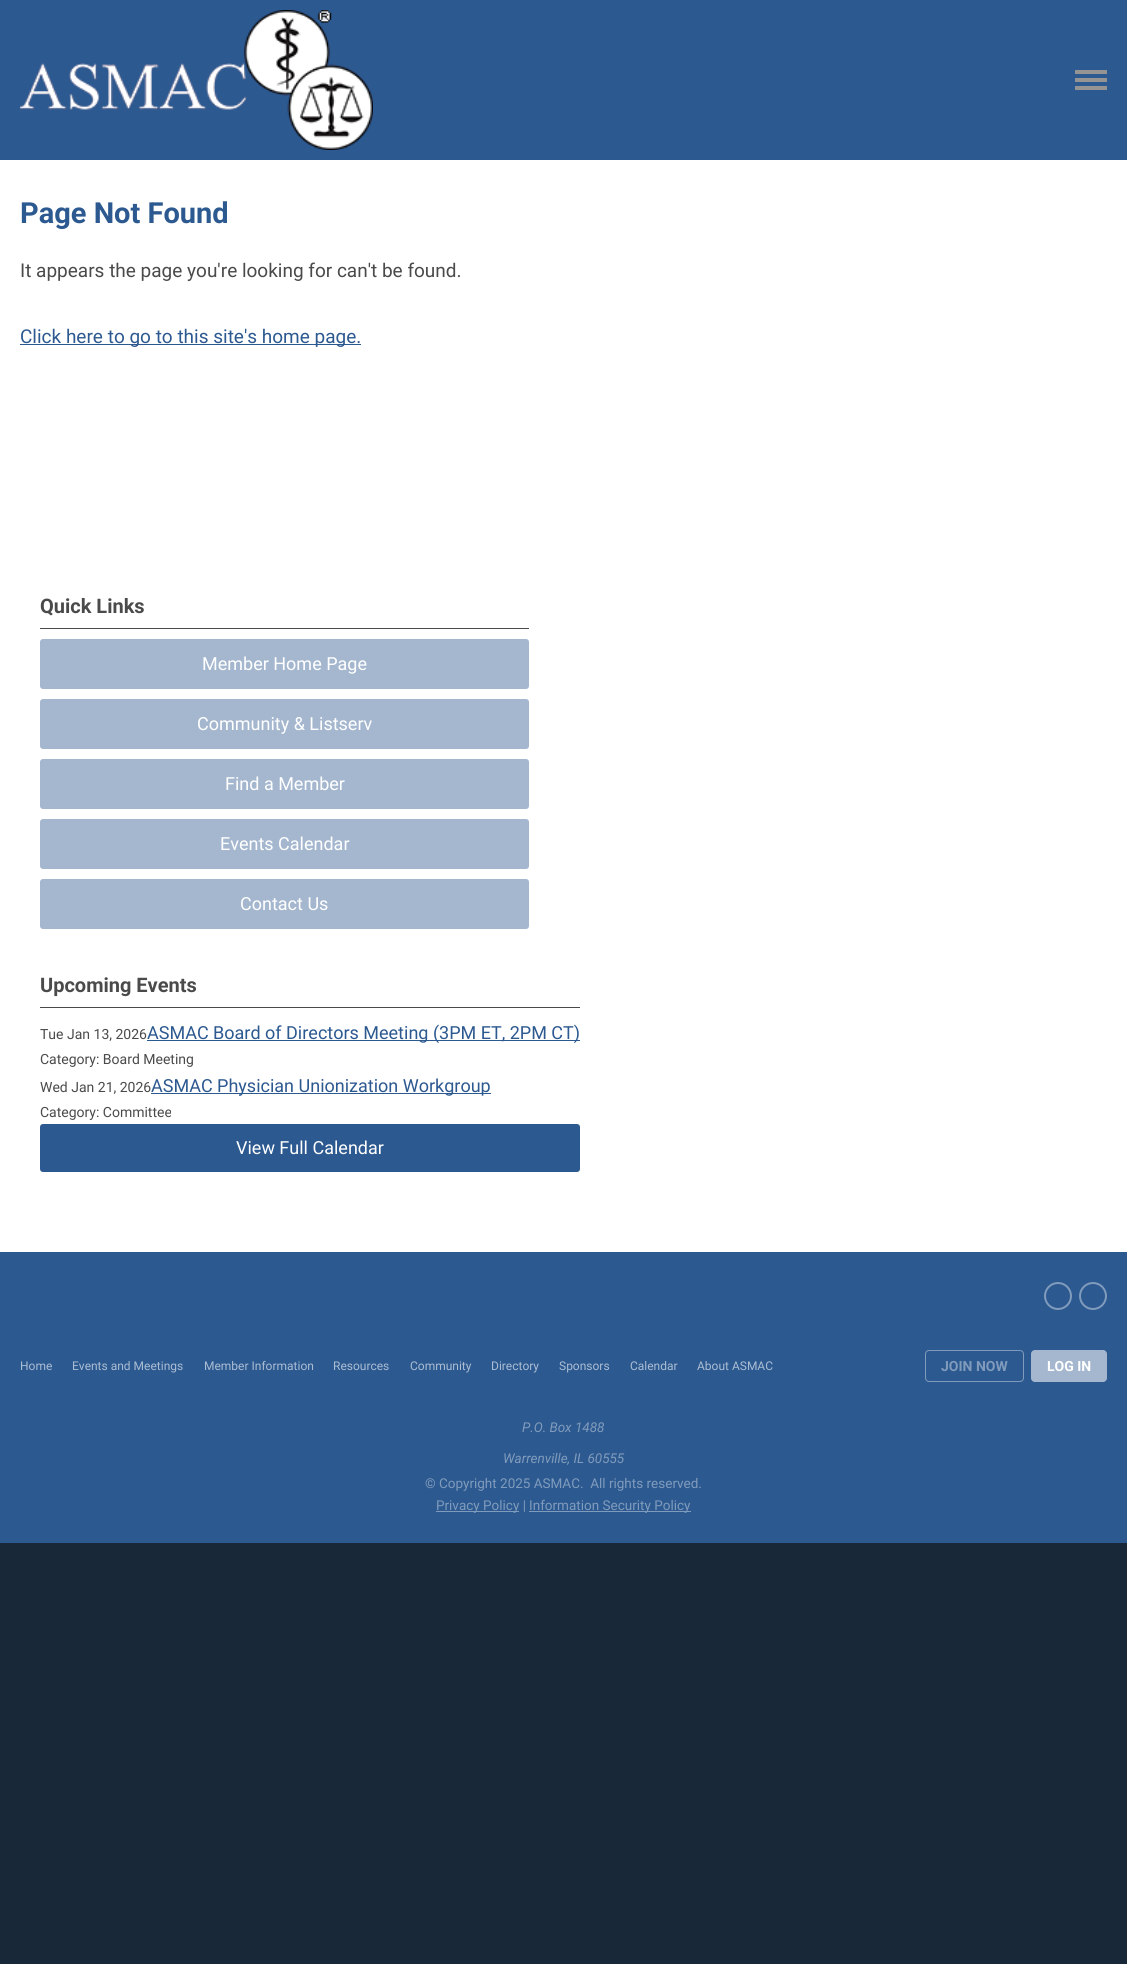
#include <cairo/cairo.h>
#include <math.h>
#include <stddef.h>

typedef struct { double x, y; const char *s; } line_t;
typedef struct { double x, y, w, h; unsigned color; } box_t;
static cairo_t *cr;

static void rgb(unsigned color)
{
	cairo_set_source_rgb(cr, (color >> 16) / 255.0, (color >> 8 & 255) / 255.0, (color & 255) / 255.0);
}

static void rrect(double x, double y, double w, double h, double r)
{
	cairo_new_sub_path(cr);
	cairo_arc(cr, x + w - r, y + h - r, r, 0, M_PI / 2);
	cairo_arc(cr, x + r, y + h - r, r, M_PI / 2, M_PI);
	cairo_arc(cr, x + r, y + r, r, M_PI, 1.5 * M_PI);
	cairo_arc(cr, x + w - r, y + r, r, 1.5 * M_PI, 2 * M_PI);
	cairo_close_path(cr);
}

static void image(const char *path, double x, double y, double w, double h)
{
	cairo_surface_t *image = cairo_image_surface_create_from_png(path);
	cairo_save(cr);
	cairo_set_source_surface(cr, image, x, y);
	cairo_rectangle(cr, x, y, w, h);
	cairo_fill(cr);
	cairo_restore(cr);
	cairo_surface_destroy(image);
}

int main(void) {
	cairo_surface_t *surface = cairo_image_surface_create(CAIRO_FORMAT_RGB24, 1127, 1964);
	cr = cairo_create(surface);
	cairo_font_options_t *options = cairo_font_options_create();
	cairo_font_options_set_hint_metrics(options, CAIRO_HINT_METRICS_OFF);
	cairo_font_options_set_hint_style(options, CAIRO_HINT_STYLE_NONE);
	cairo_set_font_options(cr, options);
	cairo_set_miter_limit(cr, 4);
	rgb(0xffffff);
	cairo_paint(cr);
	rgb(0x2c5990);
	cairo_rectangle(cr, 0, 0, 1127, 160);
	cairo_fill(cr);
	image("img/1.png", 20, 10, 353, 140);
	image("img/2.png", 1075, 70, 32, 20);
	cairo_rectangle(cr, 20, 344, 341, 1);
	cairo_fill(cr);
	rgb(0x4a4a4a);
	cairo_rectangle(cr, 40, 628, 489, 1);
	cairo_fill(cr);
	rgb(0xa4b7cf);
	rrect(40, 639, 489, 50, 3);
	cairo_fill(cr);
	rrect(40, 699, 489, 50, 3);
	cairo_fill(cr);
	rrect(40, 759, 489, 50, 3);
	cairo_fill(cr);
	rrect(40, 819, 489, 50, 3);
	cairo_fill(cr);
	rrect(40, 879, 489, 50, 3);
	cairo_fill(cr);
	{
		static const box_t items[] = {
			{40, 1007, 540, 1, 0x4a4a4a},
			{147, 1040, 433, 1, 0x2c5990},
			{151, 1093, 340, 1, 0x2c5990},
		};
		for (size_t i = 0; i < sizeof items / sizeof *items; i++) {
			rgb(items[i].color);
			cairo_rectangle(cr, items[i].x, items[i].y, items[i].w, items[i].h);
			cairo_fill(cr);
		}
	}
	rrect(40, 1124, 540, 48, 3);
	cairo_fill(cr);
	cairo_rectangle(cr, 0, 1252, 1127, 291);
	cairo_fill(cr);
	cairo_arc(cr, 1058, 1296, 13, 0, 2 * M_PI);
	rgb(0x809bbc);
	cairo_stroke(cr);
	cairo_arc(cr, 1093, 1296, 13, 0, 2 * M_PI);
	cairo_stroke(cr);
	rrect(925.5, 1350.5, 98, 31, 3.5);
	cairo_set_line_width(cr, 1);
	cairo_stroke(cr);
	rgb(0xa4b7cf);
	rrect(1031.5, 1350.5, 75, 31, 3.5);
	cairo_fill_preserve(cr);
	cairo_stroke(cr);
	{
		static const box_t items[] = {
			{436, 1511, 83, 1, 0x809bbc},
			{529, 1511, 162, 1, 0x809bbc},
			{0, 1543, 1127, 421, 0x182838},
		};
		for (size_t i = 0; i < sizeof items / sizeof *items; i++) {
			rgb(items[i].color);
			cairo_rectangle(cr, items[i].x, items[i].y, items[i].w, items[i].h);
			cairo_fill(cr);
		}
	}
	cairo_select_font_face(cr, "Roboto", CAIRO_FONT_SLANT_NORMAL, CAIRO_FONT_WEIGHT_BOLD);
	cairo_set_font_size(cr, 29);
	rgb(0x2c5990);
	cairo_move_to(cr, 20, 223);
	cairo_show_text(cr, "Page Not Found");
	cairo_select_font_face(cr, "Roboto", CAIRO_FONT_SLANT_NORMAL, CAIRO_FONT_WEIGHT_NORMAL);
	cairo_set_font_size(cr, 19);
	rgb(0x4a4a4a);
	cairo_move_to(cr, 20, 277);
	cairo_show_text(cr, "It appears the page you're looking for can't be found.");
	rgb(0x2c5990);
	cairo_move_to(cr, 20, 343);
	cairo_show_text(cr, "Click here to go to this site's home page.");
	cairo_select_font_face(cr, "Roboto", CAIRO_FONT_SLANT_NORMAL, CAIRO_FONT_WEIGHT_BOLD);
	cairo_set_font_size(cr, 20);
	rgb(0x4a4a4a);
	cairo_move_to(cr, 40, 613);
	cairo_show_text(cr, "Quick Links");
	cairo_select_font_face(cr, "Roboto", CAIRO_FONT_SLANT_NORMAL, CAIRO_FONT_WEIGHT_NORMAL);
	cairo_set_font_size(cr, 18);
	rgb(0xffffff);
	{
		static const line_t items[] = {
			{202, 670, "Member Home Page"},
			{197, 730, "Community & Listserv"},
			{225, 790, "Find a Member"},
			{220, 850, "Events Calendar"},
			{240, 910, "Contact Us"},
		};
		for (size_t i = 0; i < sizeof items / sizeof *items; i++) {
			cairo_move_to(cr, items[i].x, items[i].y);
			cairo_show_text(cr, items[i].s);
		}
	}
	cairo_select_font_face(cr, "Roboto", CAIRO_FONT_SLANT_NORMAL, CAIRO_FONT_WEIGHT_BOLD);
	cairo_set_font_size(cr, 20);
	rgb(0x4a4a4a);
	cairo_move_to(cr, 40, 992);
	cairo_show_text(cr, "Upcoming Events");
	cairo_select_font_face(cr, "Roboto", CAIRO_FONT_SLANT_NORMAL, CAIRO_FONT_WEIGHT_NORMAL);
	cairo_set_font_size(cr, 14);
	cairo_move_to(cr, 40, 1039);
	cairo_show_text(cr, "Tue Jan 13, 2026");
	cairo_set_font_size(cr, 18);
	rgb(0x2c5990);
	cairo_move_to(cr, 147, 1039);
	cairo_show_text(cr, "ASMAC Board of Directors Meeting (3PM ET, 2PM CT)");
	cairo_set_font_size(cr, 14);
	rgb(0x4a4a4a);
	cairo_move_to(cr, 40, 1064);
	cairo_show_text(cr, "Category: Board Meeting");
	cairo_move_to(cr, 40, 1092);
	cairo_show_text(cr, "Wed Jan 21, 2026");
	cairo_set_font_size(cr, 18);
	rgb(0x2c5990);
	cairo_move_to(cr, 151, 1092);
	cairo_show_text(cr, "ASMAC Physician Unionization Workgroup");
	cairo_set_font_size(cr, 14);
	rgb(0x4a4a4a);
	cairo_move_to(cr, 40, 1117);
	cairo_show_text(cr, "Category: Committee");
	cairo_set_font_size(cr, 18);
	rgb(0xffffff);
	cairo_move_to(cr, 236, 1154);
	cairo_show_text(cr, "View Full Calendar");
	cairo_set_font_size(cr, 12);
	rgb(0xabbdd3);
	{
		static const line_t items[] = {
			{20, 1370, "Home"},
			{72, 1370, "Events and Meetings"},
			{204, 1370, "Member Information"},
			{333, 1370, "Resources"},
			{410, 1370, "Community"},
			{491, 1370, "Directory"},
			{559, 1370, "Sponsors"},
			{630, 1370, "Calendar"},
			{697, 1370, "About ASMAC"},
		};
		for (size_t i = 0; i < sizeof items / sizeof *items; i++) {
			cairo_move_to(cr, items[i].x, items[i].y);
			cairo_show_text(cr, items[i].s);
		}
	}
	cairo_select_font_face(cr, "Roboto", CAIRO_FONT_SLANT_NORMAL, CAIRO_FONT_WEIGHT_BOLD);
	cairo_set_font_size(cr, 14);
	rgb(0x809bbc);
	cairo_move_to(cr, 941, 1371);
	cairo_show_text(cr, "JOIN NOW");
	rgb(0xffffff);
	cairo_move_to(cr, 1047, 1371);
	cairo_show_text(cr, "LOG IN");
	cairo_select_font_face(cr, "Roboto", CAIRO_FONT_SLANT_ITALIC, CAIRO_FONT_WEIGHT_NORMAL);
	cairo_set_font_size(cr, 13.5);
	rgb(0x809bbc);
	cairo_move_to(cr, 522, 1432);
	cairo_show_text(cr, "P.O. Box 1488");
	cairo_move_to(cr, 503, 1463);
	cairo_show_text(cr, "Warrenville, IL 60555");
	cairo_select_font_face(cr, "Roboto", CAIRO_FONT_SLANT_NORMAL, CAIRO_FONT_WEIGHT_NORMAL);
	{
		static const line_t items[] = {
			{425, 1488, "© Copyright 2025 ASMAC.  All rights reserved."},
			{436, 1510, "Privacy Policy |"},
			{529, 1510, "Information Security Policy"},
		};
		for (size_t i = 0; i < sizeof items / sizeof *items; i++) {
			cairo_move_to(cr, items[i].x, items[i].y);
			cairo_show_text(cr, items[i].s);
		}
	}
	cairo_surface_write_to_png(surface, "page.png");
	cairo_font_options_destroy(options);
	cairo_destroy(cr);
	cairo_surface_destroy(surface);
	return 0;
}
